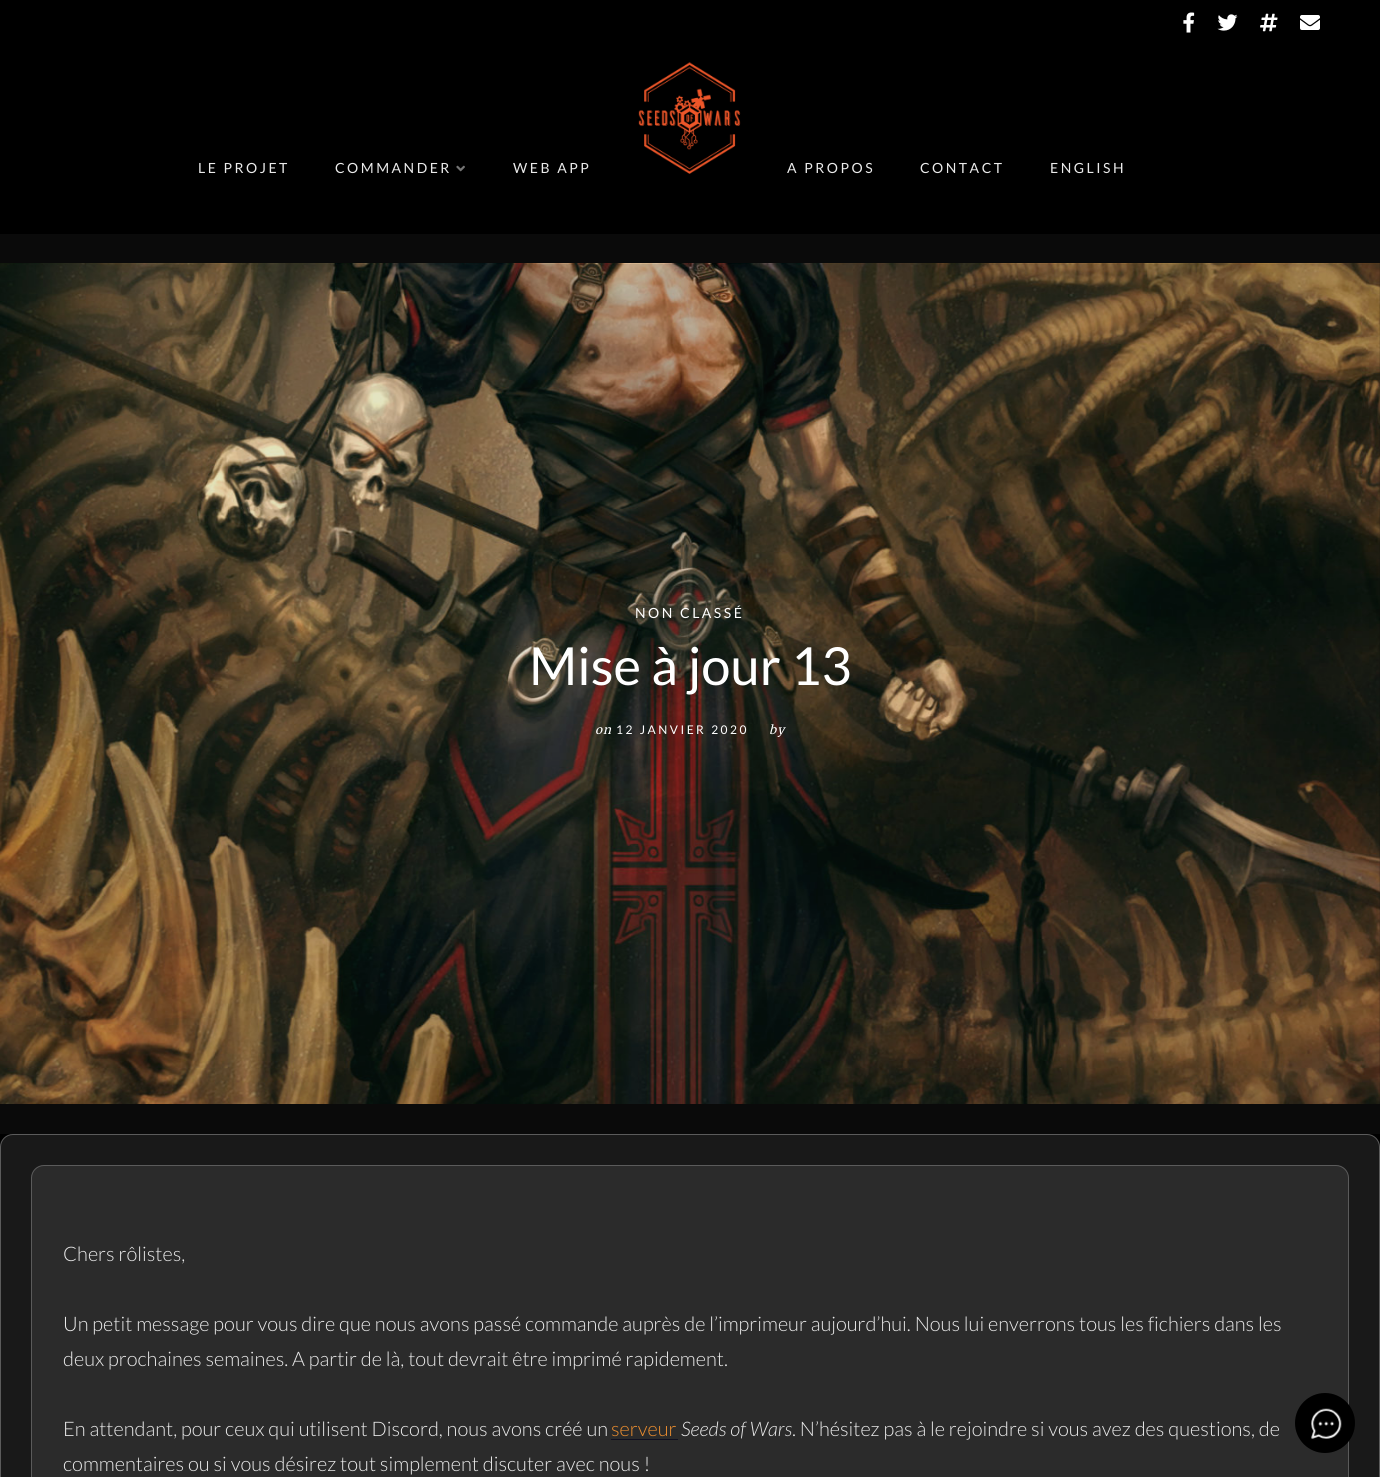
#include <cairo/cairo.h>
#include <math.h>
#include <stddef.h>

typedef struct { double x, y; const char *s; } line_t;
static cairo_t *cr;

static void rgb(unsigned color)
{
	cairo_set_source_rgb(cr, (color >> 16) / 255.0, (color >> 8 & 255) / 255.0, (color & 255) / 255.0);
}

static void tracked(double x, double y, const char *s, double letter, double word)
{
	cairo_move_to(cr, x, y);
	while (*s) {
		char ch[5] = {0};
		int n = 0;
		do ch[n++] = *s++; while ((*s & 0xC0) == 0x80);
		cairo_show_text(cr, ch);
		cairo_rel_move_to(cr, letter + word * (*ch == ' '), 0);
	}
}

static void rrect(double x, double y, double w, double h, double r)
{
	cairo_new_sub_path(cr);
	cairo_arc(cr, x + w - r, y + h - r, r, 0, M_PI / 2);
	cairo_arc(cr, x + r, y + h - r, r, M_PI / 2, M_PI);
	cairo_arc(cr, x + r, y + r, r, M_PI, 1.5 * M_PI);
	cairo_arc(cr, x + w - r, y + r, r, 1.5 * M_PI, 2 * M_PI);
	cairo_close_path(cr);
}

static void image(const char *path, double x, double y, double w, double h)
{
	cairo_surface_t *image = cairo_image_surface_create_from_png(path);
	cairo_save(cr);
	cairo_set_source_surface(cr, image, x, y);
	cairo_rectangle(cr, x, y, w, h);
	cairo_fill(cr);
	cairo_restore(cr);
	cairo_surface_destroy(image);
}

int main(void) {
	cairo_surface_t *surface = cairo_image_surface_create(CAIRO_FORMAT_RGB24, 1380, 1477);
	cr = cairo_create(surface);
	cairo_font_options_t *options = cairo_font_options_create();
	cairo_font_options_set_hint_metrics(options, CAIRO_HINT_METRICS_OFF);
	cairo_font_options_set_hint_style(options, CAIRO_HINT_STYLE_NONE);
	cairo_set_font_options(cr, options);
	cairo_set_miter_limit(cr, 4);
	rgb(0x000000);
	cairo_paint(cr);
	image("img/1.png", 1183, 12, 12, 21);
	image("img/2.png", 1217, 14, 21, 17);
	image("img/3.png", 1260, 13, 18, 19);
	image("img/4.png", 1300, 15, 20, 15);
	image("img/5.png", 456, 165, 9, 7);
	image("img/6.png", 638, 62, 103, 112);
	rgb(0x0a0a0a);
	cairo_rectangle(cr, 0, 234, 1380, 900);
	cairo_fill(cr);
	image("img/7.png", 0, 263, 1380, 841);
	rgb(0x191919);
	rrect(0.5, 1134.5, 1379, 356, 12.5);
	cairo_fill_preserve(cr);
	rgb(0x5b5b5b);
	cairo_set_line_width(cr, 1);
	cairo_stroke(cr);
	rgb(0x2b2b2b);
	rrect(31.5, 1165.5, 1317, 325, 12.5);
	cairo_fill_preserve(cr);
	rgb(0x5b5b5b);
	cairo_stroke(cr);
	rgb(0x101020);
	cairo_rectangle(cr, 611, 1439, 67, 1);
	cairo_fill(cr);
	rgb(0x000000);
	cairo_arc(cr, 1325, 1423, 30, 0, 2 * M_PI);
	cairo_fill(cr);
	image("img/8.png", 1311, 1408, 31, 31);
	cairo_select_font_face(cr, "Lato", CAIRO_FONT_SLANT_NORMAL, CAIRO_FONT_WEIGHT_NORMAL);
	cairo_set_font_size(cr, 14);
	rgb(0xeaeaea);
	{
		static const line_t items[] = {
			{198, 173, "LE PROJET"},
			{335, 173, "COMMANDER"},
			{513, 173, "WEB APP"},
			{787, 173, "A PROPOS"},
			{920, 173, "CONTACT"},
			{1050, 173, "ENGLISH"},
		};
		for (size_t i = 0; i < sizeof items / sizeof *items; i++) {
			tracked(items[i].x, items[i].y, items[i].s, 2.5, 0);
		}
	}
	rgb(0xffffff);
	tracked(635, 618, "NON CLASSÉ", 2.5, 0);
	cairo_set_font_size(cr, 52.5);
	cairo_move_to(cr, 529, 685);
	cairo_show_text(cr, "Mise à jour 13");
	cairo_select_font_face(cr, "Merriweather Light", CAIRO_FONT_SLANT_ITALIC, CAIRO_FONT_WEIGHT_NORMAL);
	cairo_set_font_size(cr, 12);
	tracked(595, 734, "on", 1, 0);
	cairo_select_font_face(cr, "Lato", CAIRO_FONT_SLANT_NORMAL, CAIRO_FONT_WEIGHT_NORMAL);
	tracked(616, 734, "12 JANVIER 2020", 2.5, 0);
	cairo_select_font_face(cr, "Merriweather Light", CAIRO_FONT_SLANT_ITALIC, CAIRO_FONT_WEIGHT_NORMAL);
	tracked(769, 734, "by", 1, 0);
	cairo_select_font_face(cr, "Lato Light", CAIRO_FONT_SLANT_NORMAL, CAIRO_FONT_WEIGHT_NORMAL);
	cairo_set_font_size(cr, 20);
	rgb(0xeaeaea);
	{
		static const line_t items[] = {
			{63, 1261, "Chers rôlistes,"},
			{63, 1331, "Un petit message pour vous dire que nous avons passé commande auprès de l’imprimeur aujourd’hui. Nous lui enverrons tous les fichiers dans les"},
			{63, 1366, "deux prochaines semaines. A partir de là, tout devrait être imprimé rapidement."},
			{63, 1436, "En attendant, pour ceux qui utilisent Discord, nous avons créé un"},
		};
		for (size_t i = 0; i < sizeof items / sizeof *items; i++) {
			cairo_move_to(cr, items[i].x, items[i].y);
			cairo_show_text(cr, items[i].s);
		}
	}
	rgb(0xed8e2f);
	cairo_move_to(cr, 611, 1436);
	cairo_show_text(cr, "serveur");
	cairo_select_font_face(cr, "Lato Light", CAIRO_FONT_SLANT_ITALIC, CAIRO_FONT_WEIGHT_NORMAL);
	rgb(0xeaeaea);
	cairo_move_to(cr, 681, 1436);
	cairo_show_text(cr, "Seeds of Wars");
	cairo_select_font_face(cr, "Lato Light", CAIRO_FONT_SLANT_NORMAL, CAIRO_FONT_WEIGHT_NORMAL);
	cairo_move_to(cr, 792, 1436);
	cairo_show_text(cr, ". N’hésitez pas à le rejoindre si vous avez des questions, de");
	cairo_move_to(cr, 63, 1471);
	cairo_show_text(cr, "commentaires ou si vous désirez tout simplement discuter avec nous !");
	cairo_surface_write_to_png(surface, "page.png");
	cairo_font_options_destroy(options);
	cairo_destroy(cr);
	cairo_surface_destroy(surface);
	return 0;
}
